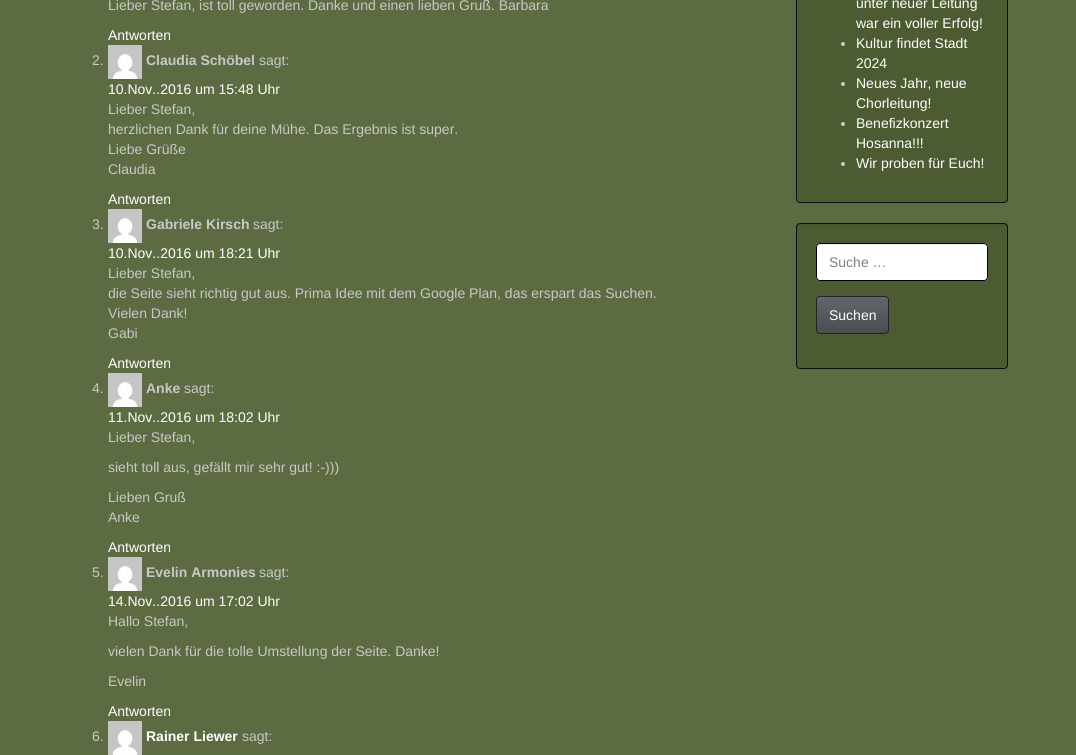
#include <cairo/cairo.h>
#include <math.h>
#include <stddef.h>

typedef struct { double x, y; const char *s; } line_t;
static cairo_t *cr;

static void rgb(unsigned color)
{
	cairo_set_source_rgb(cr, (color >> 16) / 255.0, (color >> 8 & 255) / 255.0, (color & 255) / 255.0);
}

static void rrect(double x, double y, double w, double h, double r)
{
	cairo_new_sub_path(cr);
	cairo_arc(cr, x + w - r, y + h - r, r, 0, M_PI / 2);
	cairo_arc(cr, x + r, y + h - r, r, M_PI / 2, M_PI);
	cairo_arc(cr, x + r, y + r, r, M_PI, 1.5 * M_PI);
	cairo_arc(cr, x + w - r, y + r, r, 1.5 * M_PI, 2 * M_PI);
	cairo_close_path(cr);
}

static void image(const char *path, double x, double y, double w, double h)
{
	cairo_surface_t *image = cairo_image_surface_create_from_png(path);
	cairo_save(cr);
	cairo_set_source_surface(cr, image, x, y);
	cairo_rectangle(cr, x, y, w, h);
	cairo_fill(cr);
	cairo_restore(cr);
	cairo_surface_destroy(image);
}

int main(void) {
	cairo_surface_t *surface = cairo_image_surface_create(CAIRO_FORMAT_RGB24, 1076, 755);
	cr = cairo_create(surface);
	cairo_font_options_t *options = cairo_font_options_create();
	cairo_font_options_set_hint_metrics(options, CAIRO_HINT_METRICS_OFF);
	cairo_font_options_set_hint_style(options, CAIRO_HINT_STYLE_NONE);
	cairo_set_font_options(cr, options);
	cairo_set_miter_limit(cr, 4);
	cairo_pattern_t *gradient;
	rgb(0x5c6b42);
	cairo_paint(cr);
	image("img/1.png", 108, 45, 34, 34);
	image("img/1.png", 108, 209, 34, 34);
	image("img/1.png", 108, 373, 34, 34);
	image("img/1.png", 108, 557, 34, 34);
	image("img/1.png", 108, 721, 34, 34);
	rgb(0x4c5b32);
	rrect(796.5, -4.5, 211, 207, 3.5);
	cairo_fill_preserve(cr);
	rgb(0x0c0d0e);
	cairo_set_line_width(cr, 1);
	cairo_stroke(cr);
	rgb(0xc8c8c8);
	cairo_arc(cr, 843, 44, 2, 0, 2 * M_PI);
	cairo_fill(cr);
	cairo_arc(cr, 843, 84, 2, 0, 2 * M_PI);
	cairo_fill(cr);
	cairo_arc(cr, 843, 124, 2, 0, 2 * M_PI);
	cairo_fill(cr);
	cairo_arc(cr, 843, 164, 2, 0, 2 * M_PI);
	cairo_fill(cr);
	rgb(0x4c5b32);
	rrect(796, 223, 212, 146, 4);
	cairo_fill(cr);
	rgb(0x485630);
	cairo_new_path(cr);
	cairo_move_to(cr, 800, 225);
	cairo_line_to(cr, 1004, 225);
	cairo_curve_to(cr, 1006, 225, 1007, 226, 1007, 228);
	cairo_line_to(cr, 1007, 227);
	cairo_curve_to(cr, 1007, 225, 1006, 224, 1004, 224);
	cairo_line_to(cr, 800, 224);
	cairo_curve_to(cr, 798, 224, 797, 225, 797, 227);
	cairo_line_to(cr, 797, 228);
	cairo_curve_to(cr, 797, 226, 798, 225, 800, 225);
	cairo_close_path(cr);
	cairo_fill(cr);
	rrect(796.5, 223.5, 211, 145, 3.5);
	rgb(0x0c0d0e);
	cairo_stroke(cr);
	rgb(0xffffff);
	rrect(816, 243, 172, 38, 4);
	cairo_fill(cr);
	rgb(0xececec);
	cairo_new_path(cr);
	cairo_move_to(cr, 820, 245);
	cairo_line_to(cr, 984, 245);
	cairo_curve_to(cr, 986, 245, 987, 246, 987, 248);
	cairo_line_to(cr, 987, 247);
	cairo_curve_to(cr, 987, 245, 986, 244, 984, 244);
	cairo_line_to(cr, 820, 244);
	cairo_curve_to(cr, 818, 244, 817, 245, 817, 247);
	cairo_line_to(cr, 817, 248);
	cairo_curve_to(cr, 817, 246, 818, 245, 820, 245);
	cairo_close_path(cr);
	cairo_fill(cr);
	rrect(816.5, 243.5, 171, 37, 3.5);
	rgb(0x000000);
	cairo_stroke(cr);
	rgb(0x52575c);
	rrect(816, 296, 73, 38, 4);
	cairo_fill(cr);
	cairo_save(cr);
	rrect(816, 296, 73, 38, 4);
	cairo_clip(cr);
	gradient = cairo_pattern_create_linear(853, 297, 853, 333);
	cairo_pattern_add_color_stop_rgba(gradient, 0, 0.376, 0.4, 0.424, 1);
	cairo_pattern_add_color_stop_rgba(gradient, 0.6, 0.322, 0.341, 0.361, 1);
	cairo_pattern_add_color_stop_rgba(gradient, 1, 0.282, 0.302, 0.318, 1);
	cairo_set_source(cr, gradient);
	cairo_pattern_destroy(gradient);
	cairo_rectangle(cr, 817, 297, 71, 36);
	cairo_fill(cr);
	cairo_restore(cr);
	rrect(816.5, 296.5, 72, 37, 3.5);
	cairo_set_source_rgba(cr, 0, 0, 0, 0.6);
	cairo_stroke(cr);
	cairo_select_font_face(cr, "Liberation Sans", CAIRO_FONT_SLANT_NORMAL, CAIRO_FONT_WEIGHT_NORMAL);
	cairo_set_font_size(cr, 14);
	rgb(0xc8c8c8);
	cairo_move_to(cr, 108, 10);
	cairo_show_text(cr, "Lieber Stefan, ist toll geworden. Danke und einen lieben Gruß. Barbara");
	rgb(0xffffff);
	cairo_move_to(cr, 108, 40);
	cairo_show_text(cr, "Antworten");
	rgb(0xc8c8c8);
	cairo_move_to(cr, 92, 65);
	cairo_show_text(cr, "2.");
	cairo_select_font_face(cr, "Liberation Sans", CAIRO_FONT_SLANT_NORMAL, CAIRO_FONT_WEIGHT_BOLD);
	cairo_move_to(cr, 146, 65);
	cairo_show_text(cr, "Claudia Schöbel");
	cairo_select_font_face(cr, "Liberation Sans", CAIRO_FONT_SLANT_NORMAL, CAIRO_FONT_WEIGHT_NORMAL);
	cairo_move_to(cr, 259, 65);
	cairo_show_text(cr, "sagt:");
	rgb(0xffffff);
	cairo_move_to(cr, 108, 94);
	cairo_show_text(cr, "10.Nov..2016 um 15:48 Uhr");
	rgb(0xc8c8c8);
	{
		static const line_t items[] = {
			{108, 114, "Lieber Stefan,"},
			{108, 134, "herzlichen Dank für deine Mühe. Das Ergebnis ist super."},
			{108, 154, "Liebe Grüße"},
			{108, 174, "Claudia"},
		};
		for (size_t i = 0; i < sizeof items / sizeof *items; i++) {
			cairo_move_to(cr, items[i].x, items[i].y);
			cairo_show_text(cr, items[i].s);
		}
	}
	rgb(0xffffff);
	cairo_move_to(cr, 108, 204);
	cairo_show_text(cr, "Antworten");
	rgb(0xc8c8c8);
	cairo_move_to(cr, 92, 229);
	cairo_show_text(cr, "3.");
	cairo_select_font_face(cr, "Liberation Sans", CAIRO_FONT_SLANT_NORMAL, CAIRO_FONT_WEIGHT_BOLD);
	cairo_move_to(cr, 146, 229);
	cairo_show_text(cr, "Gabriele Kirsch");
	cairo_select_font_face(cr, "Liberation Sans", CAIRO_FONT_SLANT_NORMAL, CAIRO_FONT_WEIGHT_NORMAL);
	cairo_move_to(cr, 253, 229);
	cairo_show_text(cr, "sagt:");
	rgb(0xffffff);
	cairo_move_to(cr, 108, 258);
	cairo_show_text(cr, "10.Nov..2016 um 18:21 Uhr");
	rgb(0xc8c8c8);
	{
		static const line_t items[] = {
			{108, 278, "Lieber Stefan,"},
			{108, 298, "die Seite sieht richtig gut aus. Prima Idee mit dem Google Plan, das erspart das Suchen."},
			{108, 318, "Vielen Dank!"},
			{108, 338, "Gabi"},
		};
		for (size_t i = 0; i < sizeof items / sizeof *items; i++) {
			cairo_move_to(cr, items[i].x, items[i].y);
			cairo_show_text(cr, items[i].s);
		}
	}
	rgb(0xffffff);
	cairo_move_to(cr, 108, 368);
	cairo_show_text(cr, "Antworten");
	rgb(0xc8c8c8);
	cairo_move_to(cr, 92, 393);
	cairo_show_text(cr, "4.");
	cairo_select_font_face(cr, "Liberation Sans", CAIRO_FONT_SLANT_NORMAL, CAIRO_FONT_WEIGHT_BOLD);
	cairo_move_to(cr, 146, 393);
	cairo_show_text(cr, "Anke");
	cairo_select_font_face(cr, "Liberation Sans", CAIRO_FONT_SLANT_NORMAL, CAIRO_FONT_WEIGHT_NORMAL);
	cairo_move_to(cr, 184, 393);
	cairo_show_text(cr, "sagt:");
	rgb(0xffffff);
	cairo_move_to(cr, 108, 422);
	cairo_show_text(cr, "11.Nov..2016 um 18:02 Uhr");
	rgb(0xc8c8c8);
	{
		static const line_t items[] = {
			{108, 442, "Lieber Stefan,"},
			{108, 472, "sieht toll aus, gefällt mir sehr gut! :-)))"},
			{108, 502, "Lieben Gruß"},
			{108, 522, "Anke"},
		};
		for (size_t i = 0; i < sizeof items / sizeof *items; i++) {
			cairo_move_to(cr, items[i].x, items[i].y);
			cairo_show_text(cr, items[i].s);
		}
	}
	rgb(0xffffff);
	cairo_move_to(cr, 108, 552);
	cairo_show_text(cr, "Antworten");
	rgb(0xc8c8c8);
	cairo_move_to(cr, 92, 577);
	cairo_show_text(cr, "5.");
	cairo_select_font_face(cr, "Liberation Sans", CAIRO_FONT_SLANT_NORMAL, CAIRO_FONT_WEIGHT_BOLD);
	cairo_move_to(cr, 146, 577);
	cairo_show_text(cr, "Evelin Armonies");
	cairo_select_font_face(cr, "Liberation Sans", CAIRO_FONT_SLANT_NORMAL, CAIRO_FONT_WEIGHT_NORMAL);
	cairo_move_to(cr, 259, 577);
	cairo_show_text(cr, "sagt:");
	rgb(0xffffff);
	cairo_move_to(cr, 108, 606);
	cairo_show_text(cr, "14.Nov..2016 um 17:02 Uhr");
	rgb(0xc8c8c8);
	{
		static const line_t items[] = {
			{108, 626, "Hallo Stefan,"},
			{108, 656, "vielen Dank für die tolle Umstellung der Seite. Danke!"},
			{108, 686, "Evelin"},
		};
		for (size_t i = 0; i < sizeof items / sizeof *items; i++) {
			cairo_move_to(cr, items[i].x, items[i].y);
			cairo_show_text(cr, items[i].s);
		}
	}
	rgb(0xffffff);
	cairo_move_to(cr, 108, 716);
	cairo_show_text(cr, "Antworten");
	rgb(0xc8c8c8);
	cairo_move_to(cr, 92, 741);
	cairo_show_text(cr, "6.");
	cairo_select_font_face(cr, "Liberation Sans", CAIRO_FONT_SLANT_NORMAL, CAIRO_FONT_WEIGHT_BOLD);
	rgb(0xffffff);
	cairo_move_to(cr, 146, 741);
	cairo_show_text(cr, "Rainer Liewer");
	cairo_select_font_face(cr, "Liberation Sans", CAIRO_FONT_SLANT_NORMAL, CAIRO_FONT_WEIGHT_NORMAL);
	rgb(0xc8c8c8);
	cairo_move_to(cr, 242, 741);
	cairo_show_text(cr, "sagt:");
	rgb(0xffffff);
	{
		static const line_t items[] = {
			{856, 8, "unter neuer Leitung"},
			{856, 28, "war ein voller Erfolg!"},
			{856, 48, "Kultur findet Stadt"},
			{856, 68, "2024"},
			{856, 88, "Neues Jahr, neue"},
			{856, 108, "Chorleitung!"},
			{856, 128, "Benefizkonzert"},
			{856, 148, "Hosanna!!!"},
			{856, 168, "Wir proben für Euch!"},
		};
		for (size_t i = 0; i < sizeof items / sizeof *items; i++) {
			cairo_move_to(cr, items[i].x, items[i].y);
			cairo_show_text(cr, items[i].s);
		}
	}
	rgb(0x7a8288);
	cairo_move_to(cr, 829, 267);
	cairo_show_text(cr, "Suche …");
	rgb(0xffffff);
	cairo_move_to(cr, 829, 320);
	cairo_show_text(cr, "Suchen");
	cairo_surface_write_to_png(surface, "page.png");
	cairo_font_options_destroy(options);
	cairo_destroy(cr);
	cairo_surface_destroy(surface);
	return 0;
}
